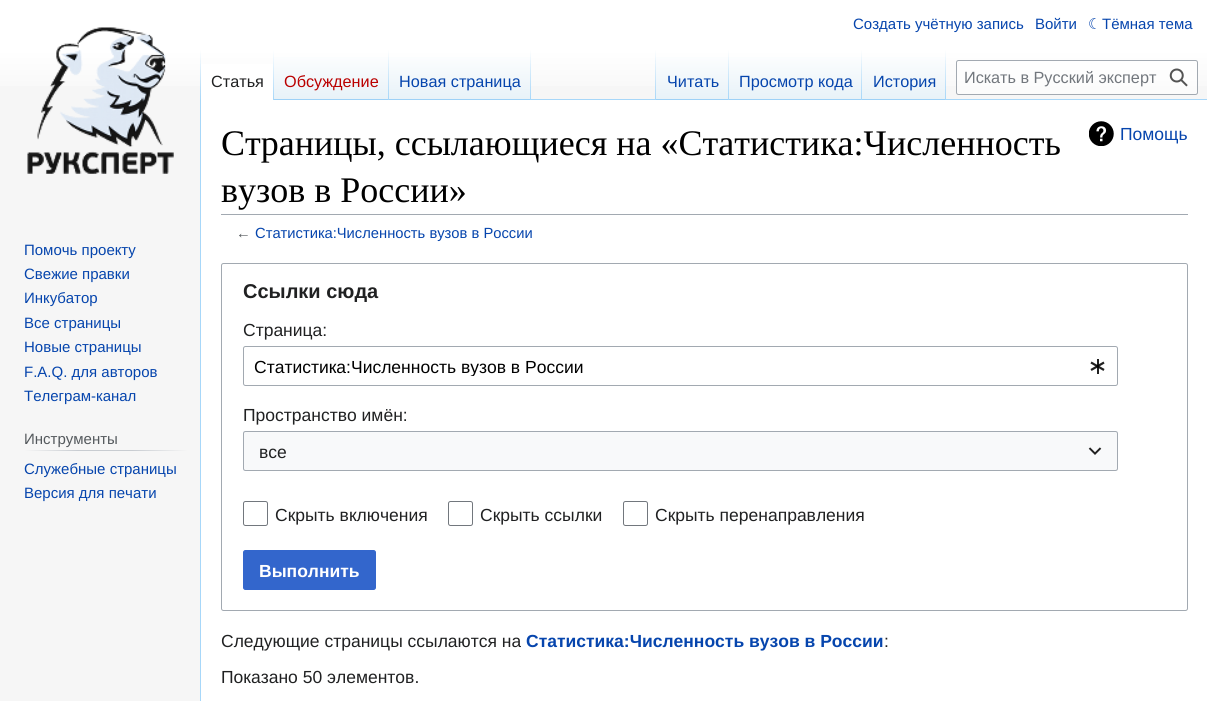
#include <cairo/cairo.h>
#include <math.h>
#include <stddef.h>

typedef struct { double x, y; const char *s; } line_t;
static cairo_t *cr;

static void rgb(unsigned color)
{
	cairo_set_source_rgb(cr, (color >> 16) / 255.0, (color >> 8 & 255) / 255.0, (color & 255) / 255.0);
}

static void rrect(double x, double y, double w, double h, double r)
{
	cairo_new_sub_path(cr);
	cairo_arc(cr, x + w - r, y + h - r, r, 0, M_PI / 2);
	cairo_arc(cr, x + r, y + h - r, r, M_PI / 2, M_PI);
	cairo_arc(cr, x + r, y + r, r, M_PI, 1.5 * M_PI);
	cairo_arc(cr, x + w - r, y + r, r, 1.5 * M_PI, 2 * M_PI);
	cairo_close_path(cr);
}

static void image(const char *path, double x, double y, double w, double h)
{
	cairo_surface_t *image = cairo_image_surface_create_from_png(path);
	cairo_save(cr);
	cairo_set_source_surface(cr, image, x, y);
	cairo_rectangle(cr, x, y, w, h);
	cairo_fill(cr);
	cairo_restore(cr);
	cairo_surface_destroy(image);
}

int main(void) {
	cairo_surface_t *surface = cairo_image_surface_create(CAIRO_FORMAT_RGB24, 1207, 701);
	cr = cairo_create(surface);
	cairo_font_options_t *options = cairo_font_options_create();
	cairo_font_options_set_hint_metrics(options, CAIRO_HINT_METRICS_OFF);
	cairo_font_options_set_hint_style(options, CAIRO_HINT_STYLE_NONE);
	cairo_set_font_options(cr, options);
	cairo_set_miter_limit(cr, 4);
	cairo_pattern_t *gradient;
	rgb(0xf6f6f6);
	cairo_paint(cr);
	gradient = cairo_pattern_create_linear(604, 0, 604, 100);
	cairo_pattern_add_color_stop_rgba(gradient, 0.5, 1, 1, 1, 1);
	cairo_pattern_add_color_stop_rgba(gradient, 1, 0.965, 0.965, 0.965, 1);
	cairo_set_source(cr, gradient);
	cairo_pattern_destroy(gradient);
	cairo_rectangle(cr, 0, 0, 1207, 86);
	cairo_fill(cr);
	rgb(0xa7d7f9);
	cairo_rectangle(cr, 200, 99, 1, 602);
	cairo_fill(cr);
	gradient = cairo_pattern_create_linear(201, 50, 201, 100);
	cairo_pattern_add_color_stop_rgba(gradient, 0, 0.655, 0.843, 0.976, 0);
	cairo_pattern_add_color_stop_rgba(gradient, 1, 0.655, 0.843, 0.976, 1);
	cairo_set_source(cr, gradient);
	cairo_pattern_destroy(gradient);
	cairo_rectangle(cr, 200, 50, 1, 50);
	cairo_fill(cr);
	rgb(0xffffff);
	cairo_rectangle(cr, 201, 64, 72, 36);
	cairo_fill(cr);
	gradient = cairo_pattern_create_linear(273, 50, 273, 100);
	cairo_pattern_add_color_stop_rgba(gradient, 0, 1, 1, 1, 1);
	cairo_pattern_add_color_stop_rgba(gradient, 1, 0.655, 0.843, 0.976, 1);
	cairo_set_source(cr, gradient);
	cairo_pattern_destroy(gradient);
	cairo_rectangle(cr, 273, 50, 1, 50);
	cairo_fill(cr);
	gradient = cairo_pattern_create_linear(331, 100, 331, 50);
	cairo_pattern_add_color_stop_rgba(gradient, 0, 0.467, 0.757, 0.965, 1);
	cairo_pattern_add_color_stop_rgba(gradient, 0.03, 0.91, 0.949, 0.973, 1);
	cairo_pattern_add_color_stop_rgba(gradient, 1, 1, 1, 1, 1);
	cairo_set_source(cr, gradient);
	cairo_pattern_destroy(gradient);
	cairo_rectangle(cr, 274, 57, 115, 43);
	cairo_fill(cr);
	gradient = cairo_pattern_create_linear(388, 50, 388, 100);
	cairo_pattern_add_color_stop_rgba(gradient, 0, 0.655, 0.843, 0.976, 0);
	cairo_pattern_add_color_stop_rgba(gradient, 1, 0.655, 0.843, 0.976, 1);
	cairo_set_source(cr, gradient);
	cairo_pattern_destroy(gradient);
	cairo_rectangle(cr, 388, 50, 1, 50);
	cairo_fill(cr);
	gradient = cairo_pattern_create_linear(460, 100, 460, 50);
	cairo_pattern_add_color_stop_rgba(gradient, 0, 0.467, 0.757, 0.965, 1);
	cairo_pattern_add_color_stop_rgba(gradient, 0.03, 0.91, 0.949, 0.973, 1);
	cairo_pattern_add_color_stop_rgba(gradient, 1, 1, 1, 1, 1);
	cairo_set_source(cr, gradient);
	cairo_pattern_destroy(gradient);
	cairo_rectangle(cr, 389, 57, 142, 43);
	cairo_fill(cr);
	gradient = cairo_pattern_create_linear(531, 50, 531, 100);
	cairo_pattern_add_color_stop_rgba(gradient, 0, 0.655, 0.843, 0.976, 0);
	cairo_pattern_add_color_stop_rgba(gradient, 1, 0.655, 0.843, 0.976, 1);
	cairo_set_source(cr, gradient);
	cairo_pattern_destroy(gradient);
	cairo_rectangle(cr, 530, 50, 1, 50);
	cairo_fill(cr);
	rgb(0xa7d7f9);
	cairo_rectangle(cr, 531, 99, 676, 1);
	cairo_fill(cr);
	gradient = cairo_pattern_create_linear(656, 50, 656, 100);
	cairo_pattern_add_color_stop_rgba(gradient, 0, 0.655, 0.843, 0.976, 0);
	cairo_pattern_add_color_stop_rgba(gradient, 1, 0.655, 0.843, 0.976, 1);
	cairo_set_source(cr, gradient);
	cairo_pattern_destroy(gradient);
	cairo_rectangle(cr, 655, 50, 1, 50);
	cairo_fill(cr);
	gradient = cairo_pattern_create_linear(693, 100, 693, 50);
	cairo_pattern_add_color_stop_rgba(gradient, 0, 0.467, 0.757, 0.965, 1);
	cairo_pattern_add_color_stop_rgba(gradient, 0.03, 0.91, 0.949, 0.973, 1);
	cairo_pattern_add_color_stop_rgba(gradient, 1, 1, 1, 1, 1);
	cairo_set_source(cr, gradient);
	cairo_pattern_destroy(gradient);
	cairo_rectangle(cr, 656, 57, 73, 43);
	cairo_fill(cr);
	gradient = cairo_pattern_create_linear(728, 50, 728, 100);
	cairo_pattern_add_color_stop_rgba(gradient, 0, 0.655, 0.843, 0.976, 0);
	cairo_pattern_add_color_stop_rgba(gradient, 1, 0.655, 0.843, 0.976, 1);
	cairo_set_source(cr, gradient);
	cairo_pattern_destroy(gradient);
	cairo_rectangle(cr, 728, 50, 1, 50);
	cairo_fill(cr);
	gradient = cairo_pattern_create_linear(796, 100, 796, 50);
	cairo_pattern_add_color_stop_rgba(gradient, 0, 0.467, 0.757, 0.965, 1);
	cairo_pattern_add_color_stop_rgba(gradient, 0.03, 0.91, 0.949, 0.973, 1);
	cairo_pattern_add_color_stop_rgba(gradient, 1, 1, 1, 1, 1);
	cairo_set_source(cr, gradient);
	cairo_pattern_destroy(gradient);
	cairo_rectangle(cr, 729, 57, 134, 43);
	cairo_fill(cr);
	gradient = cairo_pattern_create_linear(862, 50, 862, 100);
	cairo_pattern_add_color_stop_rgba(gradient, 0, 0.655, 0.843, 0.976, 0);
	cairo_pattern_add_color_stop_rgba(gradient, 1, 0.655, 0.843, 0.976, 1);
	cairo_set_source(cr, gradient);
	cairo_pattern_destroy(gradient);
	cairo_rectangle(cr, 861, 50, 1, 50);
	cairo_fill(cr);
	gradient = cairo_pattern_create_linear(904, 100, 904, 50);
	cairo_pattern_add_color_stop_rgba(gradient, 0, 0.467, 0.757, 0.965, 1);
	cairo_pattern_add_color_stop_rgba(gradient, 0.03, 0.91, 0.949, 0.973, 1);
	cairo_pattern_add_color_stop_rgba(gradient, 1, 1, 1, 1, 1);
	cairo_set_source(cr, gradient);
	cairo_pattern_destroy(gradient);
	cairo_rectangle(cr, 863, 57, 83, 43);
	cairo_fill(cr);
	gradient = cairo_pattern_create_linear(946, 50, 946, 100);
	cairo_pattern_add_color_stop_rgba(gradient, 0, 0.655, 0.843, 0.976, 0);
	cairo_pattern_add_color_stop_rgba(gradient, 1, 0.655, 0.843, 0.976, 1);
	cairo_set_source(cr, gradient);
	cairo_pattern_destroy(gradient);
	cairo_rectangle(cr, 945, 50, 1, 50);
	cairo_fill(cr);
	cairo_set_source_rgba(cr, 1, 1, 1, 0.5);
	rrect(956.5, 60.5, 241, 34, 2);
	cairo_fill_preserve(cr);
	rgb(0xa2a9b1);
	cairo_set_line_width(cr, 1);
	cairo_stroke(cr);
	image("img/1.png", 1169, 68, 19, 19);
	image("img/2.png", 27, 27, 147, 147);
	gradient = cairo_pattern_create_linear(24, 451, 188, 451);
	cairo_pattern_add_color_stop_rgba(gradient, 0, 0.965, 0.965, 0.965, 1);
	cairo_pattern_add_color_stop_rgba(gradient, 0.33, 0.784, 0.8, 0.82, 1);
	cairo_pattern_add_color_stop_rgba(gradient, 0.66, 0.784, 0.8, 0.82, 1);
	cairo_pattern_add_color_stop_rgba(gradient, 1, 0.965, 0.965, 0.965, 1);
	cairo_set_source(cr, gradient);
	cairo_pattern_destroy(gradient);
	cairo_rectangle(cr, 24, 450, 164, 1);
	cairo_fill(cr);
	rgb(0xffffff);
	cairo_rectangle(cr, 201, 100, 1006, 601);
	cairo_fill(cr);
	rgb(0xa2a9b1);
	cairo_rectangle(cr, 221, 214, 967, 1);
	cairo_fill(cr);
	image("img/3.png", 1089, 121, 25, 25);
	rrect(221.5, 263.5, 966, 347, 2);
	cairo_stroke(cr);
	rrect(243.5, 346.5, 874, 39, 2);
	cairo_stroke(cr);
	image("img/4.png", 1090, 359, 15, 15);
	rgb(0xf8f9fa);
	cairo_rectangle(cr, 243, 431, 875, 40);
	cairo_fill(cr);
	rrect(243.5, 431.5, 874, 39, 2);
	rgb(0xa2a9b1);
	cairo_stroke(cr);
	image("img/5.png", 1088, 447, 14, 8);
	rrect(243.5, 501.5, 24, 24, 2);
	rgb(0x72777d);
	cairo_stroke(cr);
	rrect(448.5, 501.5, 24, 24, 2);
	cairo_stroke(cr);
	rrect(623.5, 501.5, 24, 24, 2);
	cairo_stroke(cr);
	rgb(0x3366cc);
	rrect(243.5, 550.5, 132, 39, 2);
	cairo_fill_preserve(cr);
	cairo_stroke(cr);
	cairo_select_font_face(cr, "Liberation Sans", CAIRO_FONT_SLANT_NORMAL, CAIRO_FONT_WEIGHT_NORMAL);
	cairo_set_font_size(cr, 15);
	rgb(0x0645ad);
	cairo_move_to(cr, 853, 29);
	cairo_show_text(cr, "Создать учётную запись");
	cairo_move_to(cr, 1035, 29);
	cairo_show_text(cr, "Войти");
	cairo_select_font_face(cr, "DejaVu Sans", CAIRO_FONT_SLANT_NORMAL, CAIRO_FONT_WEIGHT_NORMAL);
	cairo_move_to(cr, 1088, 29);
	cairo_show_text(cr, "☾");
	cairo_select_font_face(cr, "Liberation Sans", CAIRO_FONT_SLANT_NORMAL, CAIRO_FONT_WEIGHT_NORMAL);
	cairo_move_to(cr, 1102, 29);
	cairo_show_text(cr, "Тёмная тема");
	cairo_set_font_size(cr, 16.25);
	rgb(0x202122);
	cairo_move_to(cr, 211, 87);
	cairo_show_text(cr, "Статья");
	rgb(0xba0000);
	cairo_move_to(cr, 284, 87);
	cairo_show_text(cr, "Обсуждение");
	rgb(0x0645ad);
	{
		static const line_t items[] = {
			{399, 87, "Новая страница"},
			{667, 87, "Читать"},
			{739, 87, "Просмотр кода"},
			{873, 87, "История"},
		};
		for (size_t i = 0; i < sizeof items / sizeof *items; i++) {
			cairo_move_to(cr, items[i].x, items[i].y);
			cairo_show_text(cr, items[i].s);
		}
	}
	rgb(0x72777d);
	cairo_move_to(cr, 964, 83);
	cairo_show_text(cr, "Искать в Русский эксперт");
	cairo_set_font_size(cr, 15);
	rgb(0x0645ad);
	{
		static const line_t items[] = {
			{24, 255, "Помочь проекту"},
			{24, 279, "Свежие правки"},
			{24, 303, "Инкубатор"},
			{24, 328, "Все страницы"},
			{24, 352, "Новые страницы"},
			{24, 377, "F.A.Q. для авторов"},
			{24, 401, "Телеграм-канал"},
		};
		for (size_t i = 0; i < sizeof items / sizeof *items; i++) {
			cairo_move_to(cr, items[i].x, items[i].y);
			cairo_show_text(cr, items[i].s);
		}
	}
	rgb(0x54595d);
	cairo_move_to(cr, 24, 444);
	cairo_show_text(cr, "Инструменты");
	rgb(0x0645ad);
	cairo_move_to(cr, 24, 474);
	cairo_show_text(cr, "Служебные страницы");
	cairo_move_to(cr, 24, 498);
	cairo_show_text(cr, "Версия для печати");
	cairo_select_font_face(cr, "Liberation Serif", CAIRO_FONT_SLANT_NORMAL, CAIRO_FONT_WEIGHT_NORMAL);
	cairo_set_font_size(cr, 36);
	rgb(0x000000);
	cairo_move_to(cr, 221, 155);
	cairo_show_text(cr, "Страницы, ссылающиеся на «Статистика:Численность");
	cairo_move_to(cr, 221, 202);
	cairo_show_text(cr, "вузов в России»");
	cairo_select_font_face(cr, "Liberation Sans", CAIRO_FONT_SLANT_NORMAL, CAIRO_FONT_WEIGHT_NORMAL);
	cairo_set_font_size(cr, 17.5);
	rgb(0x0645ad);
	cairo_move_to(cr, 1120, 140);
	cairo_show_text(cr, "Помощь");
	cairo_set_font_size(cr, 14.75);
	rgb(0x54595d);
	cairo_move_to(cr, 236, 238);
	cairo_show_text(cr, "←");
	rgb(0x0645ad);
	cairo_move_to(cr, 255, 238);
	cairo_show_text(cr, "Статистика:Численность вузов в России");
	cairo_select_font_face(cr, "Liberation Sans", CAIRO_FONT_SLANT_NORMAL, CAIRO_FONT_WEIGHT_BOLD);
	cairo_set_font_size(cr, 20);
	rgb(0x202122);
	cairo_move_to(cr, 243, 298);
	cairo_show_text(cr, "Ссылки сюда");
	cairo_select_font_face(cr, "Liberation Sans", CAIRO_FONT_SLANT_NORMAL, CAIRO_FONT_WEIGHT_NORMAL);
	cairo_set_font_size(cr, 17.5);
	cairo_move_to(cr, 243, 336);
	cairo_show_text(cr, "Страница:");
	cairo_save(cr);
	cairo_rectangle(cr, 254, 356, 827, 20);
	cairo_clip(cr);
	rgb(0x000000);
	cairo_move_to(cr, 254, 373);
	cairo_show_text(cr, "Статистика:Численность вузов в России");
	cairo_restore(cr);
	{
		static const line_t items[] = {
			{243, 421, "Пространство имён:"},
			{259, 458, "все"},
			{275, 521, "Скрыть включения"},
			{480, 521, "Скрыть ссылки"},
			{655, 521, "Скрыть перенаправления"},
		};
		for (size_t i = 0; i < sizeof items / sizeof *items; i++) {
			cairo_move_to(cr, items[i].x, items[i].y);
			cairo_show_text(cr, items[i].s);
		}
	}
	cairo_select_font_face(cr, "Liberation Sans", CAIRO_FONT_SLANT_NORMAL, CAIRO_FONT_WEIGHT_BOLD);
	rgb(0xffffff);
	cairo_move_to(cr, 259, 577);
	cairo_show_text(cr, "Выполнить");
	cairo_select_font_face(cr, "Liberation Sans", CAIRO_FONT_SLANT_NORMAL, CAIRO_FONT_WEIGHT_NORMAL);
	rgb(0x202122);
	cairo_move_to(cr, 221, 647);
	cairo_show_text(cr, "Следующие страницы ссылаются на");
	cairo_select_font_face(cr, "Liberation Sans", CAIRO_FONT_SLANT_NORMAL, CAIRO_FONT_WEIGHT_BOLD);
	rgb(0x0645ad);
	cairo_move_to(cr, 526, 647);
	cairo_show_text(cr, "Статистика:Численность вузов в России");
	cairo_select_font_face(cr, "Liberation Sans", CAIRO_FONT_SLANT_NORMAL, CAIRO_FONT_WEIGHT_NORMAL);
	rgb(0x202122);
	cairo_move_to(cr, 884, 647);
	cairo_show_text(cr, ":");
	cairo_move_to(cr, 221, 683);
	cairo_show_text(cr, "Показано 50 элементов.");
	cairo_surface_write_to_png(surface, "page.png");
	cairo_font_options_destroy(options);
	cairo_destroy(cr);
	cairo_surface_destroy(surface);
	return 0;
}
